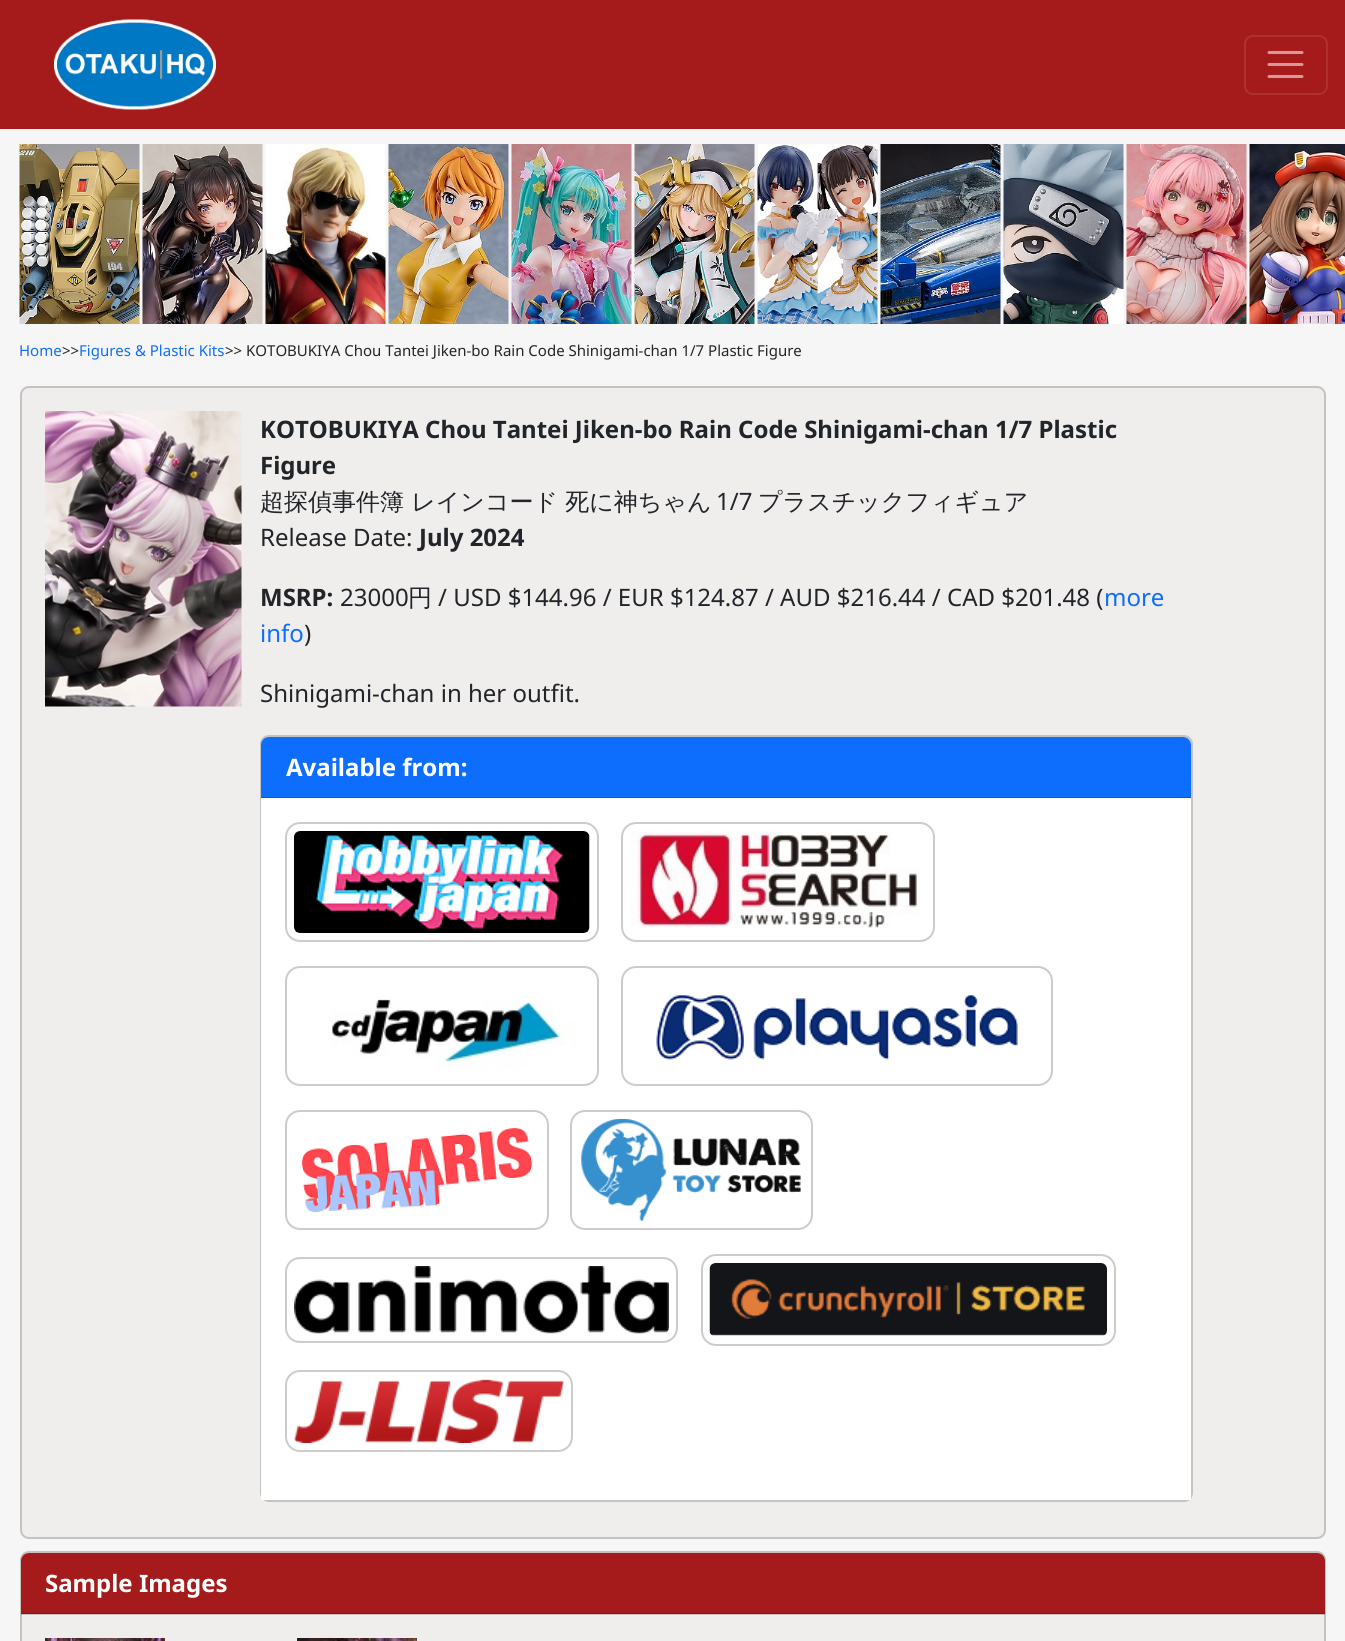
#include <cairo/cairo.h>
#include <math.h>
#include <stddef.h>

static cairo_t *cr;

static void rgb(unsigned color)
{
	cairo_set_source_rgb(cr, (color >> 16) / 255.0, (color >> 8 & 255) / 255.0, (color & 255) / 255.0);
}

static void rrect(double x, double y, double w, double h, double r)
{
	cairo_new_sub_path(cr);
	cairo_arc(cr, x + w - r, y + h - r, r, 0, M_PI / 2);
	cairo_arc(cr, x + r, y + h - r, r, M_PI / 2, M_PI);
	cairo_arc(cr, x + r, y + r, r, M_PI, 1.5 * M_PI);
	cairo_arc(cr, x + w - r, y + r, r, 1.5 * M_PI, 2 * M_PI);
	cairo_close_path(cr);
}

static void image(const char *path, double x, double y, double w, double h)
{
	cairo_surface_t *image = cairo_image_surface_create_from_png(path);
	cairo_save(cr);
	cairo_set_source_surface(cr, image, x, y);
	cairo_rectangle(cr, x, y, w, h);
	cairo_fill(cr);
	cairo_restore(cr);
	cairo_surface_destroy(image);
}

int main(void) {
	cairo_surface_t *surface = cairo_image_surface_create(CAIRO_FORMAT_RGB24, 1345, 1641);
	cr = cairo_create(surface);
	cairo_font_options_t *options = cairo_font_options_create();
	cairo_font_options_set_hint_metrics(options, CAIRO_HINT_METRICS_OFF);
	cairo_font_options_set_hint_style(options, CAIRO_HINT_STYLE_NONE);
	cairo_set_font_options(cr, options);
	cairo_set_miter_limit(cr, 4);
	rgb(0xf7f6f6);
	cairo_paint(cr);
	rgb(0xa51a1b);
	cairo_rectangle(cr, 0, 0, 1345, 129);
	cairo_fill(cr);
	image("img/1.png", 54, 19, 162, 91);
	rrect(1245, 36, 82, 58, 8);
	rgb(0xae3132);
	cairo_stroke(cr);
	cairo_new_path(cr);
	cairo_move_to(cr, 1269, 52.5);
	cairo_line_to(cr, 1302, 52.5);
	cairo_move_to(cr, 1269, 64.5);
	cairo_line_to(cr, 1302, 64.5);
	cairo_move_to(cr, 1269, 76.5);
	cairo_line_to(cr, 1302, 76.5);
	rgb(0xd79898);
	cairo_set_line_width(cr, 3);
	cairo_set_line_cap(cr, CAIRO_LINE_CAP_ROUND);
	cairo_stroke(cr);
	image("img/2.png", 19, 144, 121, 180);
	image("img/3.png", 142, 144, 121, 180);
	image("img/4.png", 265, 144, 121, 180);
	image("img/5.png", 388, 144, 121, 180);
	image("img/6.png", 511, 144, 121, 180);
	image("img/7.png", 634, 144, 121, 180);
	image("img/8.png", 757, 144, 121, 180);
	image("img/9.png", 880, 144, 121, 180);
	image("img/10.png", 1003, 144, 121, 180);
	image("img/11.png", 1126, 144, 121, 180);
	image("img/12.png", 1249, 144, 96, 180);
	rgb(0xf0eded);
	rrect(20, 386, 1306, 1153, 9);
	cairo_fill(cr);
	rrect(21, 387, 1304, 1151, 8);
	cairo_set_source_rgba(cr, 0, 0, 0, 0.18);
	cairo_set_line_width(cr, 2);
	cairo_set_line_cap(cr, CAIRO_LINE_CAP_BUTT);
	cairo_stroke(cr);
	image("img/13.png", 45, 411, 197, 296);
	rrect(261, 736, 931, 765, 8);
	rgb(0xc6c3c3);
	cairo_stroke(cr);
	rgb(0x0d6efd);
	cairo_new_path(cr);
	cairo_move_to(cr, 269, 737);
	cairo_line_to(cr, 1183, 737);
	cairo_curve_to(cr, 1187.5, 737, 1191, 740.5, 1191, 745);
	cairo_line_to(cr, 1191, 798);
	cairo_line_to(cr, 261, 798);
	cairo_line_to(cr, 261, 745);
	cairo_curve_to(cr, 261, 740.5, 264.5, 737, 269, 737);
	cairo_close_path(cr);
	cairo_fill(cr);
	cairo_set_source_rgba(cr, 0, 0, 0, 0.18);
	cairo_rectangle(cr, 261, 797, 930, 1);
	cairo_fill(cr);
	rgb(0xffffff);
	cairo_rectangle(cr, 261, 798, 930, 702);
	cairo_fill(cr);
	rrect(286, 823, 312, 118, 14);
	rgb(0xcccccc);
	cairo_stroke(cr);
	rrect(622, 823, 312, 118, 14);
	cairo_stroke(cr);
	image("img/14.png", 294, 831, 296, 102);
	image("img/15.png", 630, 831, 290, 97);
	rrect(286, 967, 312, 118, 14);
	cairo_stroke(cr);
	rrect(622, 967, 430, 118, 14);
	cairo_stroke(cr);
	image("img/16.png", 331, 999, 246, 71);
	image("img/17.png", 656, 995, 362, 65);
	rrect(286, 1111, 262, 118, 14);
	cairo_stroke(cr);
	rrect(571, 1111, 241, 118, 14);
	cairo_stroke(cr);
	image("img/18.png", 301, 1128, 232, 84);
	image("img/19.png", 581, 1119, 220, 102);
	rrect(286, 1258, 391, 84, 14);
	cairo_stroke(cr);
	rrect(702, 1255, 413, 90, 14);
	cairo_stroke(cr);
	image("img/20.png", 294, 1266, 375, 68);
	image("img/21.png", 709, 1263, 398, 73);
	rrect(286, 1371, 286, 80, 14);
	cairo_stroke(cr);
	image("img/22.png", 294, 1379, 270, 64);
	rgb(0xf0eded);
	rrect(20, 1551, 1306, 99, 9);
	cairo_fill(cr);
	rrect(21, 1552, 1304, 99, 8);
	cairo_set_source_rgba(cr, 0, 0, 0, 0.18);
	cairo_stroke(cr);
	rgb(0xa51a1b);
	cairo_new_path(cr);
	cairo_move_to(cr, 29, 1553);
	cairo_line_to(cr, 1317, 1553);
	cairo_curve_to(cr, 1321.5, 1553, 1325, 1556.5, 1325, 1561);
	cairo_line_to(cr, 1325, 1614);
	cairo_line_to(cr, 21, 1614);
	cairo_line_to(cr, 21, 1561);
	cairo_curve_to(cr, 21, 1556.5, 24.5, 1553, 29, 1553);
	cairo_close_path(cr);
	cairo_fill(cr);
	cairo_set_source_rgba(cr, 0, 0, 0, 0.18);
	cairo_rectangle(cr, 21, 1613, 1304, 2);
	cairo_fill(cr);
	image("img/23.png", 45, 1638, 120, 3);
	image("img/24.png", 297, 1638, 120, 3);
	cairo_select_font_face(cr, "Noto Sans", CAIRO_FONT_SLANT_NORMAL, CAIRO_FONT_WEIGHT_NORMAL);
	cairo_set_font_size(cr, 15);
	rgb(0x0d6efd);
	cairo_move_to(cr, 19, 356);
	cairo_show_text(cr, "Home");
	rgb(0x212529);
	cairo_move_to(cr, 62, 356);
	cairo_show_text(cr, ">>");
	rgb(0x0d6efd);
	cairo_move_to(cr, 79, 356);
	cairo_show_text(cr, "Figures & Plastic Kits");
	rgb(0x212529);
	cairo_move_to(cr, 225, 356);
	cairo_show_text(cr, ">> KOTOBUKIYA Chou Tantei Jiken-bo Rain Code Shinigami-chan 1/7 Plastic Figure");
	cairo_select_font_face(cr, "Noto Sans", CAIRO_FONT_SLANT_NORMAL, CAIRO_FONT_WEIGHT_BOLD);
	cairo_set_font_size(cr, 24);
	cairo_move_to(cr, 260, 438);
	cairo_show_text(cr, "KOTOBUKIYA Chou Tantei Jiken-bo Rain Code Shinigami-chan 1/7 Plastic");
	cairo_move_to(cr, 260, 474);
	cairo_show_text(cr, "Figure");
	cairo_select_font_face(cr, "WenQuanYi Zen Hei Medium", CAIRO_FONT_SLANT_NORMAL, CAIRO_FONT_WEIGHT_NORMAL);
	cairo_move_to(cr, 260, 510);
	cairo_show_text(cr, "超探偵事件簿 レインコード 死に神ちゃん");
	cairo_select_font_face(cr, "Noto Sans", CAIRO_FONT_SLANT_NORMAL, CAIRO_FONT_WEIGHT_NORMAL);
	cairo_move_to(cr, 716, 510);
	cairo_show_text(cr, "1/7");
	cairo_select_font_face(cr, "WenQuanYi Zen Hei Medium", CAIRO_FONT_SLANT_NORMAL, CAIRO_FONT_WEIGHT_NORMAL);
	cairo_move_to(cr, 758, 510);
	cairo_show_text(cr, "プラスチックフィギュア");
	cairo_select_font_face(cr, "Noto Sans", CAIRO_FONT_SLANT_NORMAL, CAIRO_FONT_WEIGHT_NORMAL);
	cairo_move_to(cr, 260, 546);
	cairo_show_text(cr, "Release Date:");
	cairo_select_font_face(cr, "Noto Sans", CAIRO_FONT_SLANT_NORMAL, CAIRO_FONT_WEIGHT_BOLD);
	cairo_move_to(cr, 419, 546);
	cairo_show_text(cr, "July 2024");
	cairo_move_to(cr, 260, 606);
	cairo_show_text(cr, "MSRP:");
	cairo_select_font_face(cr, "Noto Sans", CAIRO_FONT_SLANT_NORMAL, CAIRO_FONT_WEIGHT_NORMAL);
	cairo_move_to(cr, 340, 606);
	cairo_show_text(cr, "23000");
	cairo_select_font_face(cr, "WenQuanYi Zen Hei Medium", CAIRO_FONT_SLANT_NORMAL, CAIRO_FONT_WEIGHT_NORMAL);
	cairo_move_to(cr, 408, 606);
	cairo_show_text(cr, "円");
	cairo_select_font_face(cr, "Noto Sans", CAIRO_FONT_SLANT_NORMAL, CAIRO_FONT_WEIGHT_NORMAL);
	cairo_move_to(cr, 438, 606);
	cairo_show_text(cr, "/ USD $144.96 / EUR $124.87 / AUD $216.44 / CAD $201.48 (");
	rgb(0x0d6efd);
	cairo_move_to(cr, 1104, 606);
	cairo_show_text(cr, "more");
	cairo_move_to(cr, 260, 642);
	cairo_show_text(cr, "info");
	rgb(0x212529);
	cairo_move_to(cr, 304, 642);
	cairo_show_text(cr, ")");
	cairo_move_to(cr, 260, 702);
	cairo_show_text(cr, "Shinigami-chan in her outfit.");
	cairo_select_font_face(cr, "Noto Sans", CAIRO_FONT_SLANT_NORMAL, CAIRO_FONT_WEIGHT_BOLD);
	rgb(0xffffff);
	cairo_move_to(cr, 286, 776);
	cairo_show_text(cr, "Available from:");
	cairo_move_to(cr, 45, 1592);
	cairo_show_text(cr, "Sample Images");
	cairo_surface_write_to_png(surface, "page.png");
	cairo_font_options_destroy(options);
	cairo_destroy(cr);
	cairo_surface_destroy(surface);
	return 0;
}
